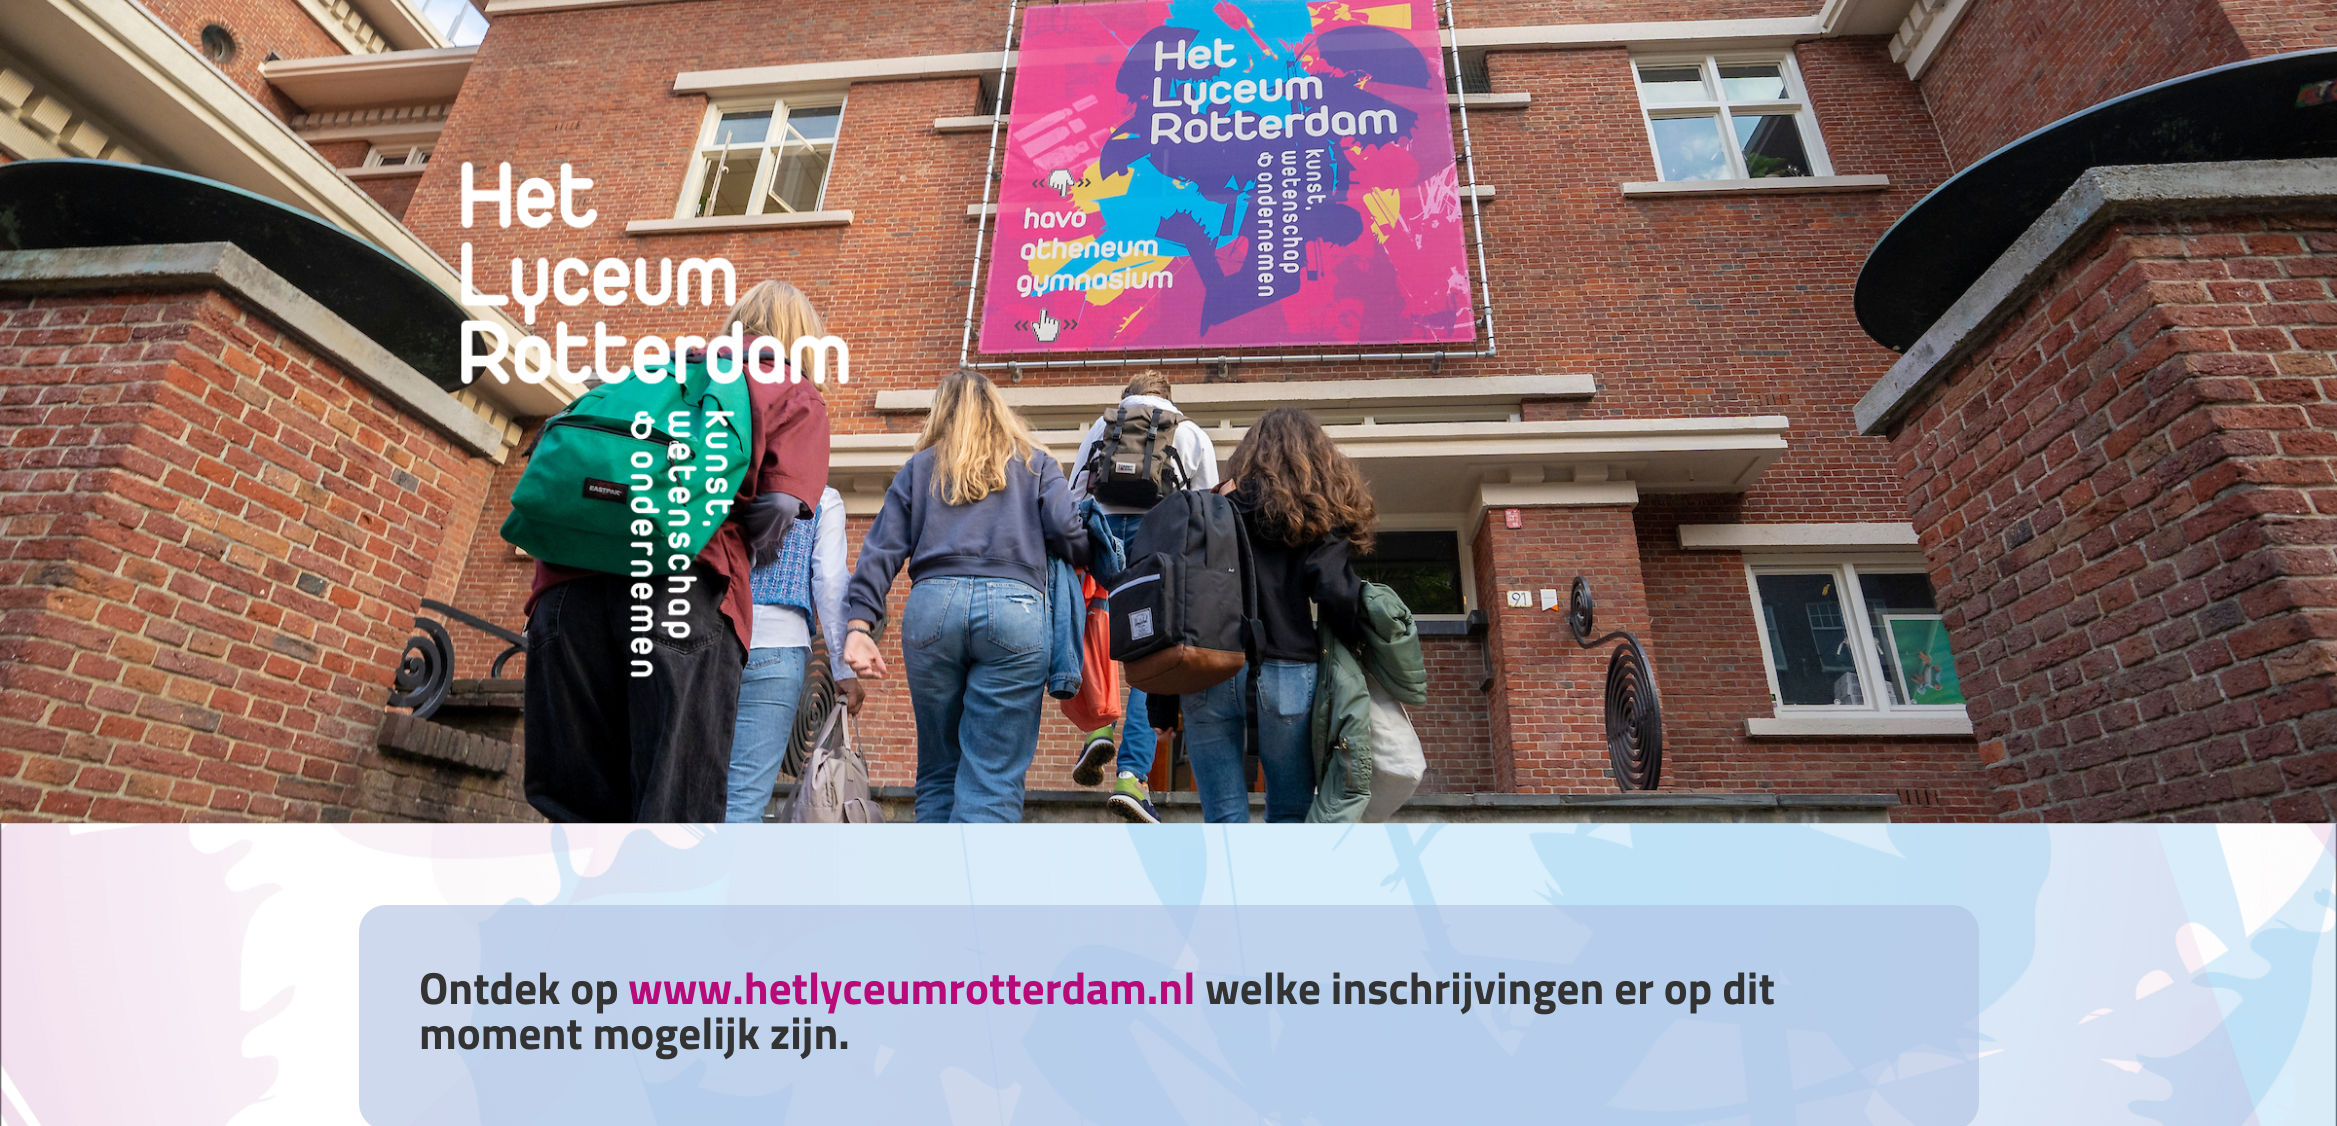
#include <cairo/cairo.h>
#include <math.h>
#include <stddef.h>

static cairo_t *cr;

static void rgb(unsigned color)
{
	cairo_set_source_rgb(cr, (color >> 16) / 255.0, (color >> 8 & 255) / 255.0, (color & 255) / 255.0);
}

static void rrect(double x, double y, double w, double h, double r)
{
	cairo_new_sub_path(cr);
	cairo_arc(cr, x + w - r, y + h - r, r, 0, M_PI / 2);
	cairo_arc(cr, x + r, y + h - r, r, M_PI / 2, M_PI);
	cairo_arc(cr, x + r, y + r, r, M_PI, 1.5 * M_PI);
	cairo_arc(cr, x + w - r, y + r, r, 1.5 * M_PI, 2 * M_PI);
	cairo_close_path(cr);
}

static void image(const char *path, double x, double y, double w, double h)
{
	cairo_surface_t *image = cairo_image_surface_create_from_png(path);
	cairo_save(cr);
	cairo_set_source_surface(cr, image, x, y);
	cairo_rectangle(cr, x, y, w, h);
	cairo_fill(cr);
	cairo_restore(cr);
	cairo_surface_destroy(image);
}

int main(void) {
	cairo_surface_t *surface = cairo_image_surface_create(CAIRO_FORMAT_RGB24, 2337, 1126);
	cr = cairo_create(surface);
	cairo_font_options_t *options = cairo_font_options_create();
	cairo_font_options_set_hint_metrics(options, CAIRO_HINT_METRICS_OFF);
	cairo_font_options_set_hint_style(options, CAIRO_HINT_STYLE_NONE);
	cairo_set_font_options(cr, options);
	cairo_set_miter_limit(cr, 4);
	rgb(0xffffff);
	cairo_paint(cr);
	image("img/1.png", 0, 0, 2337, 824);
	image("img/2.png", 461, 161, 388, 517);
	image("img/3.png", 0, 823, 2337, 303);
	cairo_set_source_rgba(cr, 0.69, 0.757, 0.894, 0.62);
	rrect(359, 905, 1620, 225, 27);
	cairo_fill(cr);
	cairo_select_font_face(cr, "Titillium Web", CAIRO_FONT_SLANT_NORMAL, CAIRO_FONT_WEIGHT_BOLD);
	cairo_set_font_size(cr, 45);
	rgb(0x333333);
	cairo_move_to(cr, 419, 1004);
	cairo_show_text(cr, "Ontdek op");
	rgb(0xb80a78);
	cairo_move_to(cr, 628, 1004);
	cairo_show_text(cr, "www.hetlyceumrotterdam.nl");
	rgb(0x333333);
	cairo_move_to(cr, 1205, 1004);
	cairo_show_text(cr, "welke inschrijvingen er op dit");
	cairo_move_to(cr, 419, 1049);
	cairo_show_text(cr, "moment mogelijk zijn.");
	cairo_surface_write_to_png(surface, "page.png");
	cairo_font_options_destroy(options);
	cairo_destroy(cr);
	cairo_surface_destroy(surface);
	return 0;
}
